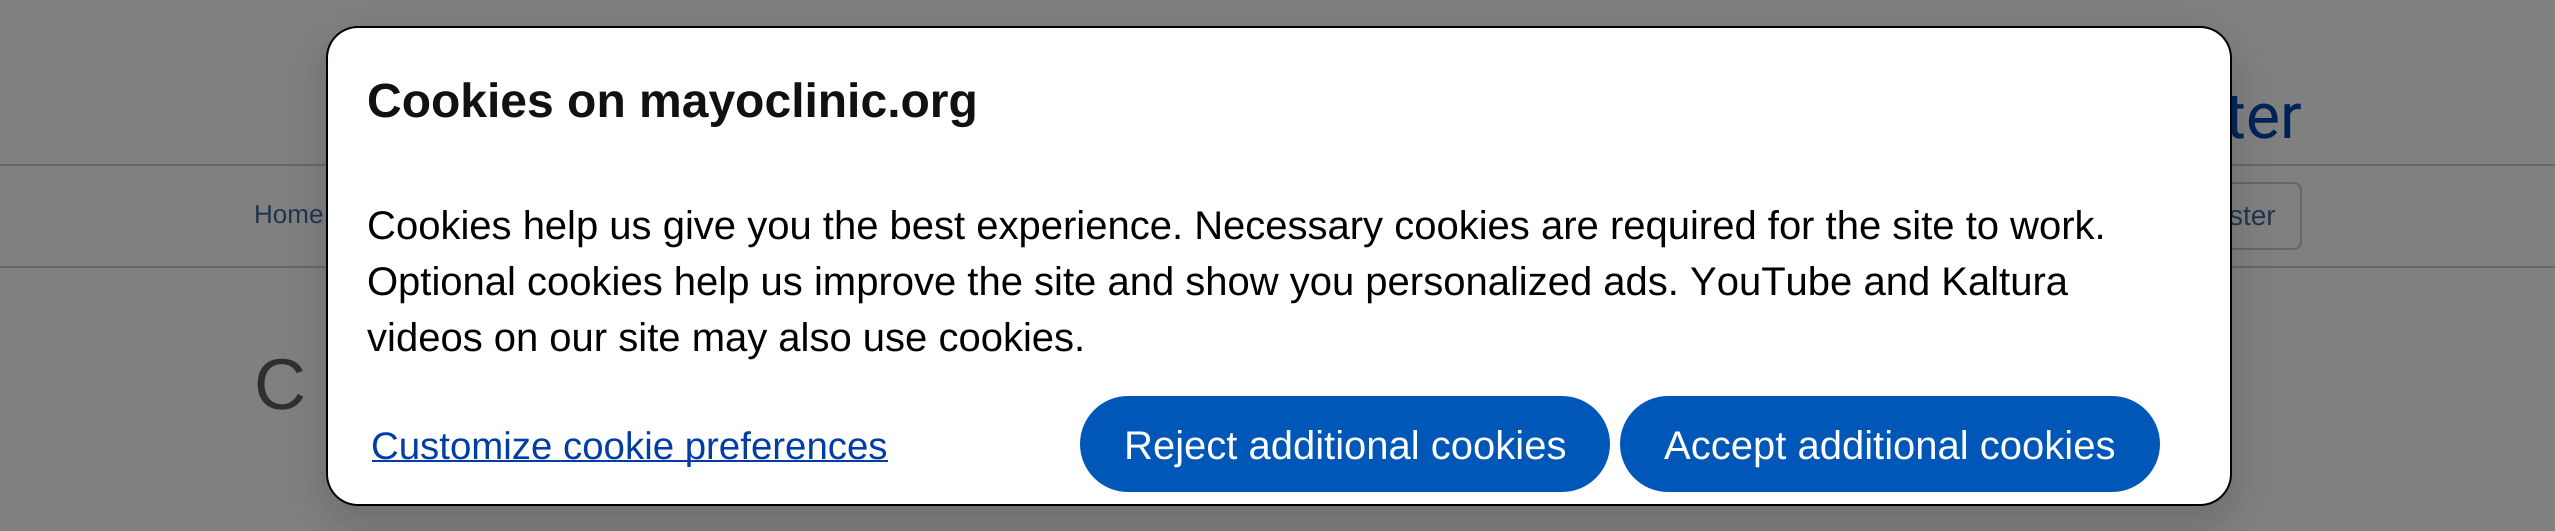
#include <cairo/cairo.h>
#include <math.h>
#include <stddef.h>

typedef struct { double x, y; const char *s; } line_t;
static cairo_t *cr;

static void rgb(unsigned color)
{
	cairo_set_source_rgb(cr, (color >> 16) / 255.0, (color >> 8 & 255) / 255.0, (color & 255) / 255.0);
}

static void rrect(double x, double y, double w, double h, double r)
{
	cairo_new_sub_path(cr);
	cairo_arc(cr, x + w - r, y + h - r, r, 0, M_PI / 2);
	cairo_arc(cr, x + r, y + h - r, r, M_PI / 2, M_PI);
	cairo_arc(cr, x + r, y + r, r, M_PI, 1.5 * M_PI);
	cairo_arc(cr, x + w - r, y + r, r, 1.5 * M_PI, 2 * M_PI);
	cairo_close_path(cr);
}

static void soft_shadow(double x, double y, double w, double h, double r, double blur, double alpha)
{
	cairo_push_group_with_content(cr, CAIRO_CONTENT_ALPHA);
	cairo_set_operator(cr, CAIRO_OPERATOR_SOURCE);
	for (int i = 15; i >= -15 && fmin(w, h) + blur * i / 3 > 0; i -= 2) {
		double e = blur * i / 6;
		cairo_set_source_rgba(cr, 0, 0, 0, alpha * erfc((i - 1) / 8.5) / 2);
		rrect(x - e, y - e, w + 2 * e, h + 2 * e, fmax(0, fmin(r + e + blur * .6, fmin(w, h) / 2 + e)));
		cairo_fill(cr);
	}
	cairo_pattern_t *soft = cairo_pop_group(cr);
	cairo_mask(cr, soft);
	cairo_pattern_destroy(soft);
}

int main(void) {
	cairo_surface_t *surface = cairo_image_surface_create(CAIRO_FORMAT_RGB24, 2555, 531);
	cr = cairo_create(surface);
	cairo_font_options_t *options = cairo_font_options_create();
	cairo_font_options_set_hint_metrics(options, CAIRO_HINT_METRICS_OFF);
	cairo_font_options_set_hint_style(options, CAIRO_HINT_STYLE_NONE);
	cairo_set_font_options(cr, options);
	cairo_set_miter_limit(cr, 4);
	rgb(0x808080);
	cairo_paint(cr);
	rgb(0x676767);
	cairo_rectangle(cr, 0, 164, 2555, 2);
	cairo_fill(cr);
	cairo_rectangle(cr, 0, 266, 2555, 2);
	cairo_fill(cr);
	rrect(2147, 183, 154, 66, 7);
	rgb(0x666666);
	cairo_stroke(cr);
	rgb(0x000000);
	soft_shadow(326, 42, 1906, 480, 32, 24, 0.16);
	cairo_select_font_face(cr, "Roboto", CAIRO_FONT_SLANT_NORMAL, CAIRO_FONT_WEIGHT_NORMAL);
	cairo_set_font_size(cr, 64);
	rgb(0x002357);
	cairo_move_to(cr, 2225, 138);
	cairo_show_text(cr, "ter");
	cairo_select_font_face(cr, "Liberation Sans", CAIRO_FONT_SLANT_NORMAL, CAIRO_FONT_WEIGHT_NORMAL);
	cairo_set_font_size(cr, 26);
	rgb(0x1b364a);
	cairo_move_to(cr, 254, 223);
	cairo_show_text(cr, "Home");
	cairo_set_font_size(cr, 28);
	cairo_move_to(cr, 2229, 225);
	cairo_show_text(cr, "ster");
	rgb(0xffffff);
	rrect(327, 27, 1904, 478, 31);
	cairo_fill_preserve(cr);
	rgb(0x000000);
	cairo_stroke(cr);
	rgb(0x0057b8);
	rrect(1622, 398, 536, 92, 46);
	cairo_fill_preserve(cr);
	cairo_set_line_width(cr, 4);
	cairo_stroke(cr);
	cairo_set_font_size(cr, 40);
	rgb(0xffffff);
	cairo_move_to(cr, 1664, 459);
	cairo_show_text(cr, "Accept additional cookies");
	rgb(0x0057b8);
	rrect(1082, 398, 526, 92, 46);
	cairo_fill_preserve(cr);
	cairo_stroke(cr);
	rgb(0xffffff);
	cairo_move_to(cr, 1124, 459);
	cairo_show_text(cr, "Reject additional cookies");
	rgb(0x003da5);
	cairo_rectangle(cr, 372, 460, 516, 2);
	cairo_fill(cr);
	cairo_set_font_size(cr, 38.4);
	cairo_move_to(cr, 371, 459);
	cairo_show_text(cr, "Customize cookie preferences");
	cairo_set_font_size(cr, 40);
	rgb(0x000000);
	{
		static const line_t items[] = {
			{367, 351, "videos on our site may also use cookies."},
			{367, 295, "Optional cookies help us improve the site and show you personalized ads. YouTube and Kaltura"},
			{367, 239, "Cookies help us give you the best experience. Necessary cookies are required for the site to work."},
		};
		for (size_t i = 0; i < sizeof items / sizeof *items; i++) {
			cairo_move_to(cr, items[i].x, items[i].y);
			cairo_show_text(cr, items[i].s);
		}
	}
	cairo_select_font_face(cr, "Liberation Sans", CAIRO_FONT_SLANT_NORMAL, CAIRO_FONT_WEIGHT_BOLD);
	cairo_set_font_size(cr, 48);
	rgb(0x111111);
	cairo_move_to(cr, 367, 117);
	cairo_show_text(cr, "Cookies on mayoclinic.org");
	cairo_select_font_face(cr, "Liberation Sans", CAIRO_FONT_SLANT_NORMAL, CAIRO_FONT_WEIGHT_NORMAL);
	cairo_set_font_size(cr, 72);
	rgb(0x2e2f2f);
	cairo_move_to(cr, 254, 409);
	cairo_show_text(cr, "C");
	cairo_surface_write_to_png(surface, "page.png");
	cairo_font_options_destroy(options);
	cairo_destroy(cr);
	cairo_surface_destroy(surface);
	return 0;
}
